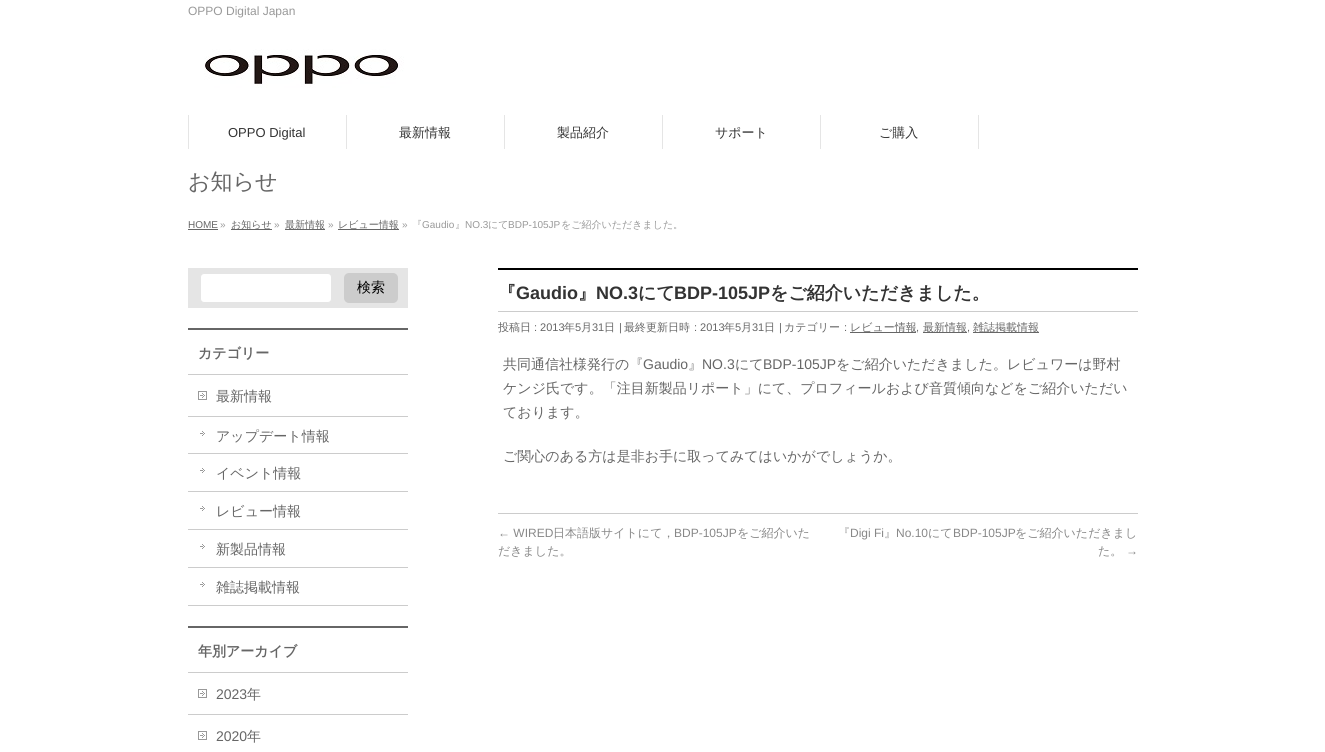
#include <cairo/cairo.h>
#include <math.h>
#include <stddef.h>

typedef struct { double x, y; const char *s; } line_t;
typedef struct { double x, y, w, h; unsigned color; } box_t;
static cairo_t *cr;

static void rgb(unsigned color)
{
	cairo_set_source_rgb(cr, (color >> 16) / 255.0, (color >> 8 & 255) / 255.0, (color & 255) / 255.0);
}

static void rrect(double x, double y, double w, double h, double r)
{
	cairo_new_sub_path(cr);
	cairo_arc(cr, x + w - r, y + h - r, r, 0, M_PI / 2);
	cairo_arc(cr, x + r, y + h - r, r, M_PI / 2, M_PI);
	cairo_arc(cr, x + r, y + r, r, M_PI, 1.5 * M_PI);
	cairo_arc(cr, x + w - r, y + r, r, 1.5 * M_PI, 2 * M_PI);
	cairo_close_path(cr);
}

static void image(const char *path, double x, double y, double w, double h)
{
	cairo_surface_t *image = cairo_image_surface_create_from_png(path);
	cairo_save(cr);
	cairo_set_source_surface(cr, image, x, y);
	cairo_rectangle(cr, x, y, w, h);
	cairo_fill(cr);
	cairo_restore(cr);
	cairo_surface_destroy(image);
}

int main(void) {
	cairo_surface_t *surface = cairo_image_surface_create(CAIRO_FORMAT_RGB24, 1325, 752);
	cr = cairo_create(surface);
	cairo_font_options_t *options = cairo_font_options_create();
	cairo_font_options_set_hint_metrics(options, CAIRO_HINT_METRICS_OFF);
	cairo_font_options_set_hint_style(options, CAIRO_HINT_STYLE_NONE);
	cairo_set_font_options(cr, options);
	cairo_set_miter_limit(cr, 4);
	rgb(0xffffff);
	cairo_paint(cr);
	image("img/1.png", 204, 49, 200, 39);
	{
		static const box_t items[] = {
			{188, 115, 1, 34, 0xe5e5e5},
			{346, 115, 1, 34, 0xe5e5e5},
			{504, 115, 1, 34, 0xe5e5e5},
			{662, 115, 1, 34, 0xe5e5e5},
			{820, 115, 1, 34, 0xe5e5e5},
			{978, 115, 1, 34, 0xe5e5e5},
			{188, 229, 30, 1, 0x666666},
			{231, 229, 41, 1, 0x666666},
			{285, 229, 40, 1, 0x666666},
			{338, 229, 61, 1, 0x666666},
			{188, 268, 220, 40, 0xe5e5e5},
		};
		for (size_t i = 0; i < sizeof items / sizeof *items; i++) {
			rgb(items[i].color);
			cairo_rectangle(cr, items[i].x, items[i].y, items[i].w, items[i].h);
			cairo_fill(cr);
		}
	}
	rgb(0xffffff);
	rrect(200.5, 273.5, 131, 29, 3.5);
	cairo_fill_preserve(cr);
	rgb(0xe5e5e5);
	cairo_set_line_width(cr, 1);
	cairo_stroke(cr);
	rgb(0xcccccc);
	rrect(344, 273, 54, 30, 5);
	cairo_fill(cr);
	{
		static const box_t items[] = {
			{188, 328, 220, 2, 0x666666},
			{188, 374, 220, 1, 0xcccccc},
			{188, 605, 220, 1, 0xcccccc},
		};
		for (size_t i = 0; i < sizeof items / sizeof *items; i++) {
			rgb(items[i].color);
			cairo_rectangle(cr, items[i].x, items[i].y, items[i].w, items[i].h);
			cairo_fill(cr);
		}
	}
	image("img/2.png", 198, 391, 9, 9);
	cairo_rectangle(cr, 188, 416, 220, 1);
	cairo_fill(cr);
	image("img/3.png", 200, 431, 5, 5);
	cairo_rectangle(cr, 188, 453, 220, 1);
	cairo_fill(cr);
	image("img/3.png", 200, 468, 5, 5);
	cairo_rectangle(cr, 188, 491, 220, 1);
	cairo_fill(cr);
	image("img/3.png", 200, 506, 5, 5);
	cairo_rectangle(cr, 188, 529, 220, 1);
	cairo_fill(cr);
	image("img/3.png", 200, 544, 5, 5);
	cairo_rectangle(cr, 188, 567, 220, 1);
	cairo_fill(cr);
	image("img/3.png", 200, 582, 5, 5);
	{
		static const box_t items[] = {
			{188, 626, 220, 2, 0x666666},
			{188, 672, 220, 1, 0xcccccc},
			{188, 714, 220, 1, 0xcccccc},
		};
		for (size_t i = 0; i < sizeof items / sizeof *items; i++) {
			rgb(items[i].color);
			cairo_rectangle(cr, items[i].x, items[i].y, items[i].w, items[i].h);
			cairo_fill(cr);
		}
	}
	image("img/2.png", 198, 689, 9, 9);
	image("img/2.png", 198, 731, 9, 9);
	{
		static const box_t items[] = {
			{498, 268, 640, 2, 0x000000},
			{498, 311, 640, 1, 0xcccccc},
			{850, 332, 66, 1, 0x666666},
			{923, 332, 44, 1, 0x666666},
			{973, 332, 66, 1, 0x666666},
			{498, 513, 640, 1, 0xcccccc},
		};
		for (size_t i = 0; i < sizeof items / sizeof *items; i++) {
			rgb(items[i].color);
			cairo_rectangle(cr, items[i].x, items[i].y, items[i].w, items[i].h);
			cairo_fill(cr);
		}
	}
	cairo_select_font_face(cr, "Liberation Sans", CAIRO_FONT_SLANT_NORMAL, CAIRO_FONT_WEIGHT_NORMAL);
	cairo_set_font_size(cr, 12);
	rgb(0x999999);
	cairo_move_to(cr, 188, 15);
	cairo_show_text(cr, "OPPO Digital Japan");
	cairo_set_font_size(cr, 13);
	rgb(0x333333);
	cairo_move_to(cr, 228, 137);
	cairo_show_text(cr, "OPPO Digital");
	cairo_select_font_face(cr, "WenQuanYi Zen Hei Medium", CAIRO_FONT_SLANT_NORMAL, CAIRO_FONT_WEIGHT_NORMAL);
	{
		static const line_t items[] = {
			{399, 137, "最新情報"},
			{557, 137, "製品紹介"},
			{715, 137, "サポート"},
			{879, 137, "ご購入"},
		};
		for (size_t i = 0; i < sizeof items / sizeof *items; i++) {
			cairo_move_to(cr, items[i].x, items[i].y);
			cairo_show_text(cr, items[i].s);
		}
	}
	cairo_set_font_size(cr, 22);
	rgb(0x666666);
	cairo_move_to(cr, 188, 189);
	cairo_show_text(cr, "お知らせ");
	cairo_select_font_face(cr, "Liberation Sans", CAIRO_FONT_SLANT_NORMAL, CAIRO_FONT_WEIGHT_NORMAL);
	cairo_set_font_size(cr, 10);
	cairo_move_to(cr, 188, 228);
	cairo_show_text(cr, "HOME");
	rgb(0x999999);
	cairo_move_to(cr, 220, 228);
	cairo_show_text(cr, "»");
	cairo_select_font_face(cr, "WenQuanYi Zen Hei Medium", CAIRO_FONT_SLANT_NORMAL, CAIRO_FONT_WEIGHT_NORMAL);
	rgb(0x666666);
	cairo_move_to(cr, 231, 228);
	cairo_show_text(cr, "お知らせ");
	cairo_select_font_face(cr, "Liberation Sans", CAIRO_FONT_SLANT_NORMAL, CAIRO_FONT_WEIGHT_NORMAL);
	rgb(0x999999);
	cairo_move_to(cr, 274, 228);
	cairo_show_text(cr, "»");
	cairo_select_font_face(cr, "WenQuanYi Zen Hei Medium", CAIRO_FONT_SLANT_NORMAL, CAIRO_FONT_WEIGHT_NORMAL);
	rgb(0x666666);
	cairo_move_to(cr, 285, 228);
	cairo_show_text(cr, "最新情報");
	cairo_select_font_face(cr, "Liberation Sans", CAIRO_FONT_SLANT_NORMAL, CAIRO_FONT_WEIGHT_NORMAL);
	rgb(0x999999);
	cairo_move_to(cr, 328, 228);
	cairo_show_text(cr, "»");
	cairo_select_font_face(cr, "WenQuanYi Zen Hei Medium", CAIRO_FONT_SLANT_NORMAL, CAIRO_FONT_WEIGHT_NORMAL);
	rgb(0x666666);
	cairo_move_to(cr, 338, 228);
	cairo_show_text(cr, "レビュー情報");
	cairo_select_font_face(cr, "Liberation Sans", CAIRO_FONT_SLANT_NORMAL, CAIRO_FONT_WEIGHT_NORMAL);
	rgb(0x999999);
	cairo_move_to(cr, 402, 228);
	cairo_show_text(cr, "»");
	cairo_select_font_face(cr, "WenQuanYi Zen Hei Medium", CAIRO_FONT_SLANT_NORMAL, CAIRO_FONT_WEIGHT_NORMAL);
	cairo_move_to(cr, 412, 228);
	cairo_show_text(cr, "『");
	cairo_select_font_face(cr, "Liberation Sans", CAIRO_FONT_SLANT_NORMAL, CAIRO_FONT_WEIGHT_NORMAL);
	cairo_move_to(cr, 422, 228);
	cairo_show_text(cr, "Gaudio");
	cairo_select_font_face(cr, "WenQuanYi Zen Hei Medium", CAIRO_FONT_SLANT_NORMAL, CAIRO_FONT_WEIGHT_NORMAL);
	cairo_move_to(cr, 455, 228);
	cairo_show_text(cr, "』");
	cairo_select_font_face(cr, "Liberation Sans", CAIRO_FONT_SLANT_NORMAL, CAIRO_FONT_WEIGHT_NORMAL);
	cairo_move_to(cr, 465, 228);
	cairo_show_text(cr, "NO.3");
	cairo_select_font_face(cr, "WenQuanYi Zen Hei Medium", CAIRO_FONT_SLANT_NORMAL, CAIRO_FONT_WEIGHT_NORMAL);
	cairo_move_to(cr, 488, 228);
	cairo_show_text(cr, "にて");
	cairo_select_font_face(cr, "Liberation Sans", CAIRO_FONT_SLANT_NORMAL, CAIRO_FONT_WEIGHT_NORMAL);
	cairo_move_to(cr, 508, 228);
	cairo_show_text(cr, "BDP-105JP");
	cairo_select_font_face(cr, "WenQuanYi Zen Hei Medium", CAIRO_FONT_SLANT_NORMAL, CAIRO_FONT_WEIGHT_NORMAL);
	cairo_move_to(cr, 561, 228);
	cairo_show_text(cr, "をご紹介いただきました。");
	cairo_set_font_size(cr, 14);
	rgb(0x000000);
	cairo_move_to(cr, 357, 292);
	cairo_show_text(cr, "検索");
	cairo_select_font_face(cr, "WenQuanYi Zen Hei", CAIRO_FONT_SLANT_NORMAL, CAIRO_FONT_WEIGHT_BOLD);
	rgb(0x666666);
	cairo_move_to(cr, 198, 358);
	cairo_show_text(cr, "カテゴリー");
	cairo_select_font_face(cr, "WenQuanYi Zen Hei Medium", CAIRO_FONT_SLANT_NORMAL, CAIRO_FONT_WEIGHT_NORMAL);
	{
		static const line_t items[] = {
			{216, 401, "最新情報"},
			{216, 441, "アップデート情報"},
			{216, 478, "イベント情報"},
			{216, 516, "レビュー情報"},
			{216, 554, "新製品情報"},
			{216, 592, "雑誌掲載情報"},
		};
		for (size_t i = 0; i < sizeof items / sizeof *items; i++) {
			cairo_move_to(cr, items[i].x, items[i].y);
			cairo_show_text(cr, items[i].s);
		}
	}
	cairo_select_font_face(cr, "WenQuanYi Zen Hei", CAIRO_FONT_SLANT_NORMAL, CAIRO_FONT_WEIGHT_BOLD);
	cairo_move_to(cr, 198, 656);
	cairo_show_text(cr, "年別アーカイブ");
	cairo_select_font_face(cr, "Liberation Sans", CAIRO_FONT_SLANT_NORMAL, CAIRO_FONT_WEIGHT_NORMAL);
	cairo_move_to(cr, 216, 699);
	cairo_show_text(cr, "2023");
	cairo_select_font_face(cr, "WenQuanYi Zen Hei Medium", CAIRO_FONT_SLANT_NORMAL, CAIRO_FONT_WEIGHT_NORMAL);
	cairo_move_to(cr, 247, 699);
	cairo_show_text(cr, "年");
	cairo_select_font_face(cr, "Liberation Sans", CAIRO_FONT_SLANT_NORMAL, CAIRO_FONT_WEIGHT_NORMAL);
	cairo_move_to(cr, 216, 741);
	cairo_show_text(cr, "2020");
	cairo_select_font_face(cr, "WenQuanYi Zen Hei Medium", CAIRO_FONT_SLANT_NORMAL, CAIRO_FONT_WEIGHT_NORMAL);
	cairo_move_to(cr, 247, 741);
	cairo_show_text(cr, "年");
	cairo_select_font_face(cr, "WenQuanYi Zen Hei", CAIRO_FONT_SLANT_NORMAL, CAIRO_FONT_WEIGHT_BOLD);
	cairo_set_font_size(cr, 18);
	rgb(0x333333);
	cairo_move_to(cr, 498, 299);
	cairo_show_text(cr, "『");
	cairo_select_font_face(cr, "Liberation Sans", CAIRO_FONT_SLANT_NORMAL, CAIRO_FONT_WEIGHT_BOLD);
	cairo_move_to(cr, 516, 299);
	cairo_show_text(cr, "Gaudio");
	cairo_select_font_face(cr, "WenQuanYi Zen Hei", CAIRO_FONT_SLANT_NORMAL, CAIRO_FONT_WEIGHT_BOLD);
	cairo_move_to(cr, 578, 299);
	cairo_show_text(cr, "』");
	cairo_select_font_face(cr, "Liberation Sans", CAIRO_FONT_SLANT_NORMAL, CAIRO_FONT_WEIGHT_BOLD);
	cairo_move_to(cr, 596, 299);
	cairo_show_text(cr, "NO.3");
	cairo_select_font_face(cr, "WenQuanYi Zen Hei", CAIRO_FONT_SLANT_NORMAL, CAIRO_FONT_WEIGHT_BOLD);
	cairo_move_to(cr, 638, 299);
	cairo_show_text(cr, "にて");
	cairo_select_font_face(cr, "Liberation Sans", CAIRO_FONT_SLANT_NORMAL, CAIRO_FONT_WEIGHT_BOLD);
	cairo_move_to(cr, 674, 299);
	cairo_show_text(cr, "BDP-105JP");
	cairo_select_font_face(cr, "WenQuanYi Zen Hei", CAIRO_FONT_SLANT_NORMAL, CAIRO_FONT_WEIGHT_BOLD);
	cairo_move_to(cr, 770, 299);
	cairo_show_text(cr, "をご紹介いただきました。");
	cairo_select_font_face(cr, "WenQuanYi Zen Hei Medium", CAIRO_FONT_SLANT_NORMAL, CAIRO_FONT_WEIGHT_NORMAL);
	cairo_set_font_size(cr, 11);
	rgb(0x666666);
	cairo_move_to(cr, 498, 331);
	cairo_show_text(cr, "投稿日");
	cairo_select_font_face(cr, "Liberation Sans", CAIRO_FONT_SLANT_NORMAL, CAIRO_FONT_WEIGHT_NORMAL);
	cairo_move_to(cr, 534, 331);
	cairo_show_text(cr, ": 2013");
	cairo_select_font_face(cr, "WenQuanYi Zen Hei Medium", CAIRO_FONT_SLANT_NORMAL, CAIRO_FONT_WEIGHT_NORMAL);
	cairo_move_to(cr, 564, 331);
	cairo_show_text(cr, "年");
	cairo_select_font_face(cr, "Liberation Sans", CAIRO_FONT_SLANT_NORMAL, CAIRO_FONT_WEIGHT_NORMAL);
	cairo_move_to(cr, 575, 331);
	cairo_show_text(cr, "5");
	cairo_select_font_face(cr, "WenQuanYi Zen Hei Medium", CAIRO_FONT_SLANT_NORMAL, CAIRO_FONT_WEIGHT_NORMAL);
	cairo_move_to(cr, 581, 331);
	cairo_show_text(cr, "月");
	cairo_select_font_face(cr, "Liberation Sans", CAIRO_FONT_SLANT_NORMAL, CAIRO_FONT_WEIGHT_NORMAL);
	cairo_move_to(cr, 592, 331);
	cairo_show_text(cr, "31");
	cairo_select_font_face(cr, "WenQuanYi Zen Hei Medium", CAIRO_FONT_SLANT_NORMAL, CAIRO_FONT_WEIGHT_NORMAL);
	cairo_move_to(cr, 604, 331);
	cairo_show_text(cr, "日");
	cairo_select_font_face(cr, "Liberation Sans", CAIRO_FONT_SLANT_NORMAL, CAIRO_FONT_WEIGHT_NORMAL);
	cairo_move_to(cr, 619, 331);
	cairo_show_text(cr, "|");
	cairo_select_font_face(cr, "WenQuanYi Zen Hei Medium", CAIRO_FONT_SLANT_NORMAL, CAIRO_FONT_WEIGHT_NORMAL);
	cairo_move_to(cr, 624, 331);
	cairo_show_text(cr, "最終更新日時");
	cairo_select_font_face(cr, "Liberation Sans", CAIRO_FONT_SLANT_NORMAL, CAIRO_FONT_WEIGHT_NORMAL);
	cairo_move_to(cr, 694, 331);
	cairo_show_text(cr, ": 2013");
	cairo_select_font_face(cr, "WenQuanYi Zen Hei Medium", CAIRO_FONT_SLANT_NORMAL, CAIRO_FONT_WEIGHT_NORMAL);
	cairo_move_to(cr, 724, 331);
	cairo_show_text(cr, "年");
	cairo_select_font_face(cr, "Liberation Sans", CAIRO_FONT_SLANT_NORMAL, CAIRO_FONT_WEIGHT_NORMAL);
	cairo_move_to(cr, 735, 331);
	cairo_show_text(cr, "5");
	cairo_select_font_face(cr, "WenQuanYi Zen Hei Medium", CAIRO_FONT_SLANT_NORMAL, CAIRO_FONT_WEIGHT_NORMAL);
	cairo_move_to(cr, 741, 331);
	cairo_show_text(cr, "月");
	cairo_select_font_face(cr, "Liberation Sans", CAIRO_FONT_SLANT_NORMAL, CAIRO_FONT_WEIGHT_NORMAL);
	cairo_move_to(cr, 752, 331);
	cairo_show_text(cr, "31");
	cairo_select_font_face(cr, "WenQuanYi Zen Hei Medium", CAIRO_FONT_SLANT_NORMAL, CAIRO_FONT_WEIGHT_NORMAL);
	cairo_move_to(cr, 764, 331);
	cairo_show_text(cr, "日");
	cairo_select_font_face(cr, "Liberation Sans", CAIRO_FONT_SLANT_NORMAL, CAIRO_FONT_WEIGHT_NORMAL);
	cairo_move_to(cr, 779, 331);
	cairo_show_text(cr, "|");
	cairo_select_font_face(cr, "WenQuanYi Zen Hei Medium", CAIRO_FONT_SLANT_NORMAL, CAIRO_FONT_WEIGHT_NORMAL);
	cairo_move_to(cr, 784, 331);
	cairo_show_text(cr, "カテゴリー");
	cairo_select_font_face(cr, "Liberation Sans", CAIRO_FONT_SLANT_NORMAL, CAIRO_FONT_WEIGHT_NORMAL);
	cairo_move_to(cr, 844, 331);
	cairo_show_text(cr, ":");
	cairo_select_font_face(cr, "WenQuanYi Zen Hei Medium", CAIRO_FONT_SLANT_NORMAL, CAIRO_FONT_WEIGHT_NORMAL);
	cairo_move_to(cr, 850, 331);
	cairo_show_text(cr, "レビュー情報");
	cairo_select_font_face(cr, "Liberation Sans", CAIRO_FONT_SLANT_NORMAL, CAIRO_FONT_WEIGHT_NORMAL);
	cairo_move_to(cr, 916, 331);
	cairo_show_text(cr, ",");
	cairo_select_font_face(cr, "WenQuanYi Zen Hei Medium", CAIRO_FONT_SLANT_NORMAL, CAIRO_FONT_WEIGHT_NORMAL);
	cairo_move_to(cr, 923, 331);
	cairo_show_text(cr, "最新情報");
	cairo_select_font_face(cr, "Liberation Sans", CAIRO_FONT_SLANT_NORMAL, CAIRO_FONT_WEIGHT_NORMAL);
	cairo_move_to(cr, 967, 331);
	cairo_show_text(cr, ",");
	cairo_select_font_face(cr, "WenQuanYi Zen Hei Medium", CAIRO_FONT_SLANT_NORMAL, CAIRO_FONT_WEIGHT_NORMAL);
	cairo_move_to(cr, 973, 331);
	cairo_show_text(cr, "雑誌掲載情報");
	cairo_set_font_size(cr, 14);
	cairo_move_to(cr, 503, 369);
	cairo_show_text(cr, "共同通信社様発行の『");
	cairo_select_font_face(cr, "Liberation Sans", CAIRO_FONT_SLANT_NORMAL, CAIRO_FONT_WEIGHT_NORMAL);
	cairo_move_to(cr, 643, 369);
	cairo_show_text(cr, "Gaudio");
	cairo_select_font_face(cr, "WenQuanYi Zen Hei Medium", CAIRO_FONT_SLANT_NORMAL, CAIRO_FONT_WEIGHT_NORMAL);
	cairo_move_to(cr, 688, 369);
	cairo_show_text(cr, "』");
	cairo_select_font_face(cr, "Liberation Sans", CAIRO_FONT_SLANT_NORMAL, CAIRO_FONT_WEIGHT_NORMAL);
	cairo_move_to(cr, 702, 369);
	cairo_show_text(cr, "NO.3");
	cairo_select_font_face(cr, "WenQuanYi Zen Hei Medium", CAIRO_FONT_SLANT_NORMAL, CAIRO_FONT_WEIGHT_NORMAL);
	cairo_move_to(cr, 735, 369);
	cairo_show_text(cr, "にて");
	cairo_select_font_face(cr, "Liberation Sans", CAIRO_FONT_SLANT_NORMAL, CAIRO_FONT_WEIGHT_NORMAL);
	cairo_move_to(cr, 763, 369);
	cairo_show_text(cr, "BDP-105JP");
	cairo_select_font_face(cr, "WenQuanYi Zen Hei Medium", CAIRO_FONT_SLANT_NORMAL, CAIRO_FONT_WEIGHT_NORMAL);
	{
		static const line_t items[] = {
			{836, 369, "をご紹介いただきました。レビュワーは野村"},
			{503, 393, "ケンジ氏です。「注目新製品リポート」にて、プロフィールおよび音質傾向などをご紹介いただい"},
			{503, 417, "ております。"},
			{503, 461, "ご関心のある方は是非お手に取ってみてはいかがでしょうか。"},
		};
		for (size_t i = 0; i < sizeof items / sizeof *items; i++) {
			cairo_move_to(cr, items[i].x, items[i].y);
			cairo_show_text(cr, items[i].s);
		}
	}
	cairo_select_font_face(cr, "Liberation Sans", CAIRO_FONT_SLANT_NORMAL, CAIRO_FONT_WEIGHT_NORMAL);
	cairo_set_font_size(cr, 12);
	rgb(0x888888);
	cairo_move_to(cr, 498, 537);
	cairo_show_text(cr, "← WIRED");
	cairo_select_font_face(cr, "WenQuanYi Zen Hei Medium", CAIRO_FONT_SLANT_NORMAL, CAIRO_FONT_WEIGHT_NORMAL);
	cairo_move_to(cr, 553, 537);
	cairo_show_text(cr, "日本語版サイトにて，");
	cairo_select_font_face(cr, "Liberation Sans", CAIRO_FONT_SLANT_NORMAL, CAIRO_FONT_WEIGHT_NORMAL);
	cairo_move_to(cr, 674, 537);
	cairo_show_text(cr, "BDP-105JP");
	cairo_select_font_face(cr, "WenQuanYi Zen Hei Medium", CAIRO_FONT_SLANT_NORMAL, CAIRO_FONT_WEIGHT_NORMAL);
	{
		static const line_t items[] = {
			{737, 537, "をご紹介いた"},
			{498, 555, "だきました。"},
			{838, 537, "『"},
		};
		for (size_t i = 0; i < sizeof items / sizeof *items; i++) {
			cairo_move_to(cr, items[i].x, items[i].y);
			cairo_show_text(cr, items[i].s);
		}
	}
	cairo_select_font_face(cr, "Liberation Sans", CAIRO_FONT_SLANT_NORMAL, CAIRO_FONT_WEIGHT_NORMAL);
	cairo_move_to(cr, 850, 537);
	cairo_show_text(cr, "Digi Fi");
	cairo_select_font_face(cr, "WenQuanYi Zen Hei Medium", CAIRO_FONT_SLANT_NORMAL, CAIRO_FONT_WEIGHT_NORMAL);
	cairo_move_to(cr, 884, 537);
	cairo_show_text(cr, "』");
	cairo_select_font_face(cr, "Liberation Sans", CAIRO_FONT_SLANT_NORMAL, CAIRO_FONT_WEIGHT_NORMAL);
	cairo_move_to(cr, 896, 537);
	cairo_show_text(cr, "No.10");
	cairo_select_font_face(cr, "WenQuanYi Zen Hei Medium", CAIRO_FONT_SLANT_NORMAL, CAIRO_FONT_WEIGHT_NORMAL);
	cairo_move_to(cr, 928, 537);
	cairo_show_text(cr, "にて");
	cairo_select_font_face(cr, "Liberation Sans", CAIRO_FONT_SLANT_NORMAL, CAIRO_FONT_WEIGHT_NORMAL);
	cairo_move_to(cr, 953, 537);
	cairo_show_text(cr, "BDP-105JP");
	cairo_select_font_face(cr, "WenQuanYi Zen Hei Medium", CAIRO_FONT_SLANT_NORMAL, CAIRO_FONT_WEIGHT_NORMAL);
	cairo_move_to(cr, 1015, 537);
	cairo_show_text(cr, "をご紹介いただきまし");
	cairo_move_to(cr, 1098, 555);
	cairo_show_text(cr, "た。");
	cairo_select_font_face(cr, "Liberation Sans", CAIRO_FONT_SLANT_NORMAL, CAIRO_FONT_WEIGHT_NORMAL);
	cairo_move_to(cr, 1126, 555);
	cairo_show_text(cr, "→");
	cairo_surface_write_to_png(surface, "page.png");
	cairo_font_options_destroy(options);
	cairo_destroy(cr);
	cairo_surface_destroy(surface);
	return 0;
}
